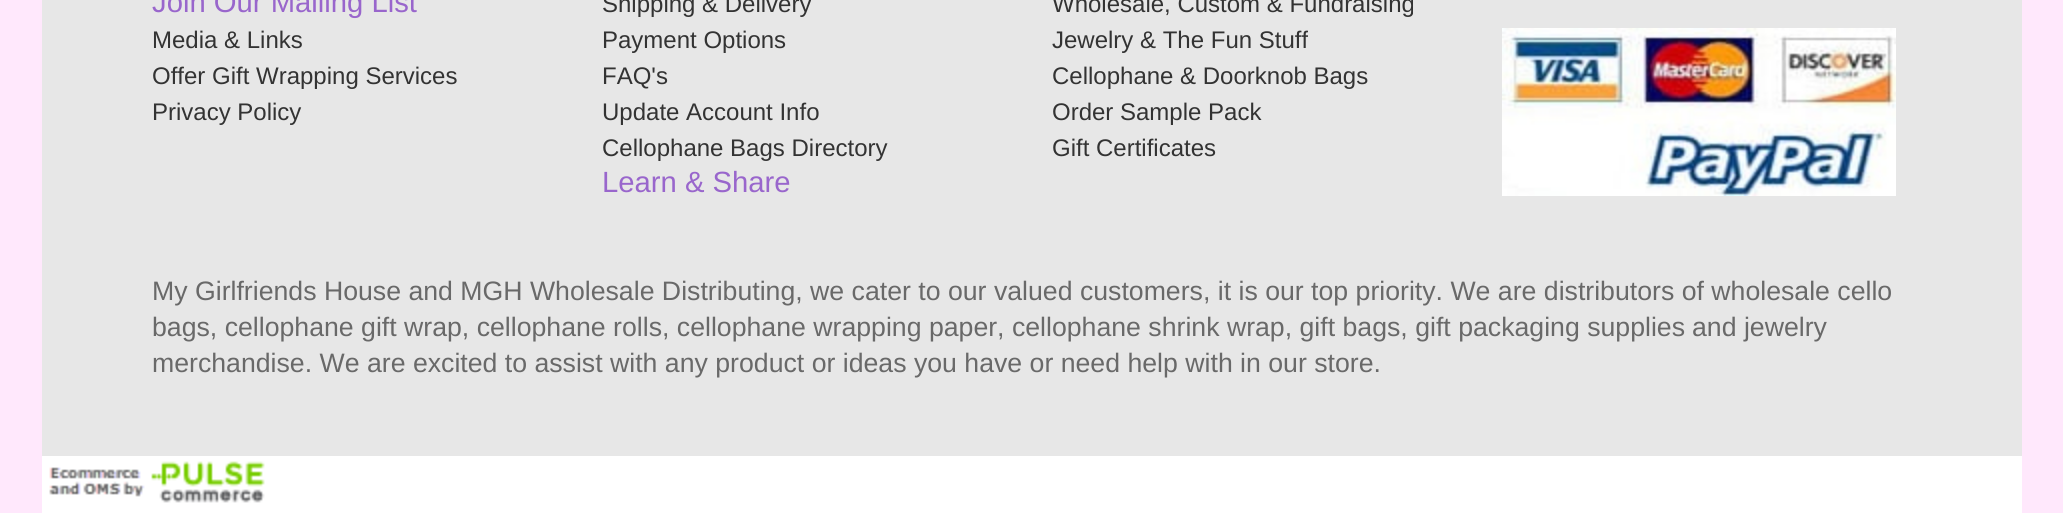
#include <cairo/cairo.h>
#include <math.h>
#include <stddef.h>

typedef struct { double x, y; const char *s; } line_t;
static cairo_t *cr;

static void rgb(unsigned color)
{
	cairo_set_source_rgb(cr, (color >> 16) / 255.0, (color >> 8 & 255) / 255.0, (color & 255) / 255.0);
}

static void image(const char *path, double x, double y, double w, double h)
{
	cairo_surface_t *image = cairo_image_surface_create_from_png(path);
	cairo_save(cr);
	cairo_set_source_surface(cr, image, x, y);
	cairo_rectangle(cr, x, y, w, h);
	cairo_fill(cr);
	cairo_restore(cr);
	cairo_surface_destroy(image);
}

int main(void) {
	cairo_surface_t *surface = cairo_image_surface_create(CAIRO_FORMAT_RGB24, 2063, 513);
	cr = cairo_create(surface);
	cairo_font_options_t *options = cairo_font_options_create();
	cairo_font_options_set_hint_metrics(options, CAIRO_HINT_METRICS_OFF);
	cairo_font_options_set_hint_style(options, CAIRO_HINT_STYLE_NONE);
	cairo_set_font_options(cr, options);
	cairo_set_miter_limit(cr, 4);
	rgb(0xffe8fc);
	cairo_paint(cr);
	rgb(0xffffff);
	cairo_rectangle(cr, 42, 456, 1980, 57);
	cairo_fill(cr);
	rgb(0xe7e7e7);
	cairo_rectangle(cr, 42, 0, 1980, 456);
	cairo_fill(cr);
	image("img/1.png", 1502, 28, 394, 168);
	image("img/2.png", 49, 461, 216, 42);
	cairo_select_font_face(cr, "Liberation Sans", CAIRO_FONT_SLANT_NORMAL, CAIRO_FONT_WEIGHT_NORMAL);
	cairo_set_font_size(cr, 29.25);
	rgb(0x9966cc);
	cairo_move_to(cr, 152, 12);
	cairo_show_text(cr, "Join Our Mailing List");
	cairo_set_font_size(cr, 24);
	rgb(0x333333);
	{
		static const line_t items[] = {
			{152, 48, "Media & Links"},
			{152, 84, "Offer Gift Wrapping Services"},
			{152, 120, "Privacy Policy"},
			{602, 12, "Shipping & Delivery"},
			{602, 48, "Payment Options"},
			{602, 84, "FAQ's"},
			{602, 120, "Update Account Info"},
			{602, 156, "Cellophane Bags Directory"},
		};
		for (size_t i = 0; i < sizeof items / sizeof *items; i++) {
			cairo_move_to(cr, items[i].x, items[i].y);
			cairo_show_text(cr, items[i].s);
		}
	}
	cairo_set_font_size(cr, 29.25);
	rgb(0x9966cc);
	cairo_move_to(cr, 602, 192);
	cairo_show_text(cr, "Learn & Share");
	cairo_set_font_size(cr, 24);
	rgb(0x333333);
	{
		static const line_t items[] = {
			{1052, 12, "Wholesale, Custom & Fundraising"},
			{1052, 48, "Jewelry & The Fun Stuff"},
			{1052, 84, "Cellophane & Doorknob Bags"},
			{1052, 120, "Order Sample Pack"},
			{1052, 156, "Gift Certificates"},
		};
		for (size_t i = 0; i < sizeof items / sizeof *items; i++) {
			cairo_move_to(cr, items[i].x, items[i].y);
			cairo_show_text(cr, items[i].s);
		}
	}
	cairo_set_font_size(cr, 26.67);
	rgb(0x696969);
	{
		static const line_t items[] = {
			{152, 300, "My Girlfriends House and MGH Wholesale Distributing, we cater to our valued customers, it is our top priority. We are distributors of wholesale cello"},
			{152, 336, "bags, cellophane gift wrap, cellophane rolls, cellophane wrapping paper, cellophane shrink wrap, gift bags, gift packaging supplies"},
			{1692, 336, "and jewelry"},
			{152, 372, "merchandise. We are excited to assist with any product or ideas you have or need help with in our store."},
		};
		for (size_t i = 0; i < sizeof items / sizeof *items; i++) {
			cairo_move_to(cr, items[i].x, items[i].y);
			cairo_show_text(cr, items[i].s);
		}
	}
	cairo_surface_write_to_png(surface, "page.png");
	cairo_font_options_destroy(options);
	cairo_destroy(cr);
	cairo_surface_destroy(surface);
	return 0;
}
